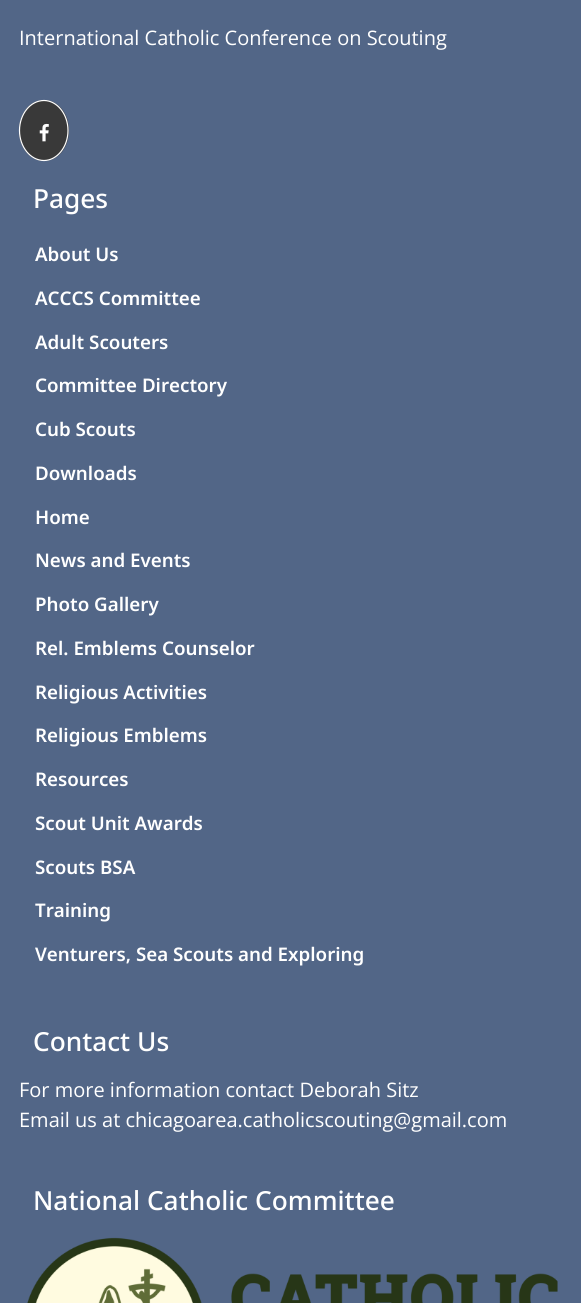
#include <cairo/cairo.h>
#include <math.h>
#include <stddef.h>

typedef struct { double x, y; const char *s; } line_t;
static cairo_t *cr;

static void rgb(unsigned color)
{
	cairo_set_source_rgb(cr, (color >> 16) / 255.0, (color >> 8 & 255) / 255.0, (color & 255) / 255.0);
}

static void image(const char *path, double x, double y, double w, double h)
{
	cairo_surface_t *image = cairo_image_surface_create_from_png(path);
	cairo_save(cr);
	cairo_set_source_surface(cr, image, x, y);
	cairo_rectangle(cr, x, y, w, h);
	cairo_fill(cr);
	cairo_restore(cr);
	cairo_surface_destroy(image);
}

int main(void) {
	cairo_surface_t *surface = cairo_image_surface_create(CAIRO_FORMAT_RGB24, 581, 1303);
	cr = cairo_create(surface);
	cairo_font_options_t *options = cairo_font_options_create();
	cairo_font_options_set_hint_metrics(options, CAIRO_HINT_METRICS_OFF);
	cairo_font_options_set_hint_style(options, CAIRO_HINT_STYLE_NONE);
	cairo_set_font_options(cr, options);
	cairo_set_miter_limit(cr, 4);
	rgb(0x526687);
	cairo_paint(cr);
	rgb(0x393939);
	cairo_new_path(cr);
	cairo_move_to(cr, 44, 100);
	cairo_curve_to(cr, 58, 100, 69, 113.5, 69, 130.5);
	cairo_curve_to(cr, 69, 147.5, 58, 161, 44, 161);
	cairo_curve_to(cr, 30, 161, 19, 147.5, 19, 130.5);
	cairo_curve_to(cr, 19, 113.5, 30, 100, 44, 100);
	cairo_close_path(cr);
	cairo_fill(cr);
	cairo_new_path(cr);
	cairo_move_to(cr, 44, 100.5);
	cairo_curve_to(cr, 57, 100.5, 68, 114, 68, 130.5);
	cairo_curve_to(cr, 68, 147, 57, 160.5, 44, 160.5);
	cairo_curve_to(cr, 30.5, 160.5, 19.5, 147, 19.5, 130.5);
	cairo_curve_to(cr, 19.5, 114, 30.5, 100.5, 44, 100.5);
	cairo_close_path(cr);
	rgb(0xffffff);
	cairo_set_line_width(cr, 1.2);
	cairo_stroke(cr);
	image("img/1.png", 39, 123, 10, 19);
	image("img/2.png", 27, 1237, 531, 66);
	cairo_select_font_face(cr, "Open Sans", CAIRO_FONT_SLANT_NORMAL, CAIRO_FONT_WEIGHT_NORMAL);
	cairo_set_font_size(cr, 20);
	cairo_move_to(cr, 19, 45);
	cairo_show_text(cr, "International Catholic Conference on Scouting");
	cairo_select_font_face(cr, "Noto Sans Medium", CAIRO_FONT_SLANT_NORMAL, CAIRO_FONT_WEIGHT_NORMAL);
	cairo_set_font_size(cr, 26.25);
	cairo_move_to(cr, 33, 208);
	cairo_show_text(cr, "Pages");
	cairo_select_font_face(cr, "Noto Sans SemiBold", CAIRO_FONT_SLANT_NORMAL, CAIRO_FONT_WEIGHT_NORMAL);
	cairo_set_font_size(cr, 18.75);
	{
		static const line_t items[] = {
			{35, 261, "About Us"},
			{35, 305, "ACCCS Committee"},
			{35, 349, "Adult Scouters"},
			{35, 392, "Committee Directory"},
			{35, 436, "Cub Scouts"},
			{35, 480, "Downloads"},
			{35, 524, "Home"},
			{35, 567, "News and Events"},
			{35, 611, "Photo Gallery"},
			{35, 655, "Rel. Emblems Counselor"},
			{35, 699, "Religious Activities"},
			{35, 742, "Religious Emblems"},
			{35, 786, "Resources"},
			{35, 830, "Scout Unit Awards"},
			{35, 874, "Scouts BSA"},
			{35, 917, "Training"},
			{35, 961, "Venturers, Sea Scouts and Exploring"},
		};
		for (size_t i = 0; i < sizeof items / sizeof *items; i++) {
			cairo_move_to(cr, items[i].x, items[i].y);
			cairo_show_text(cr, items[i].s);
		}
	}
	cairo_select_font_face(cr, "Noto Sans Medium", CAIRO_FONT_SLANT_NORMAL, CAIRO_FONT_WEIGHT_NORMAL);
	cairo_set_font_size(cr, 26.25);
	cairo_move_to(cr, 33, 1051);
	cairo_show_text(cr, "Contact Us");
	cairo_select_font_face(cr, "Open Sans", CAIRO_FONT_SLANT_NORMAL, CAIRO_FONT_WEIGHT_NORMAL);
	cairo_set_font_size(cr, 20);
	cairo_move_to(cr, 19, 1097);
	cairo_show_text(cr, "For more information contact Deborah Sitz");
	cairo_move_to(cr, 19, 1127);
	cairo_show_text(cr, "Email us at chicagoarea.catholicscouting@gmail.com");
	cairo_select_font_face(cr, "Noto Sans Medium", CAIRO_FONT_SLANT_NORMAL, CAIRO_FONT_WEIGHT_NORMAL);
	cairo_set_font_size(cr, 26.25);
	cairo_move_to(cr, 33, 1210);
	cairo_show_text(cr, "National Catholic Committee");
	cairo_surface_write_to_png(surface, "page.png");
	cairo_font_options_destroy(options);
	cairo_destroy(cr);
	cairo_surface_destroy(surface);
	return 0;
}
